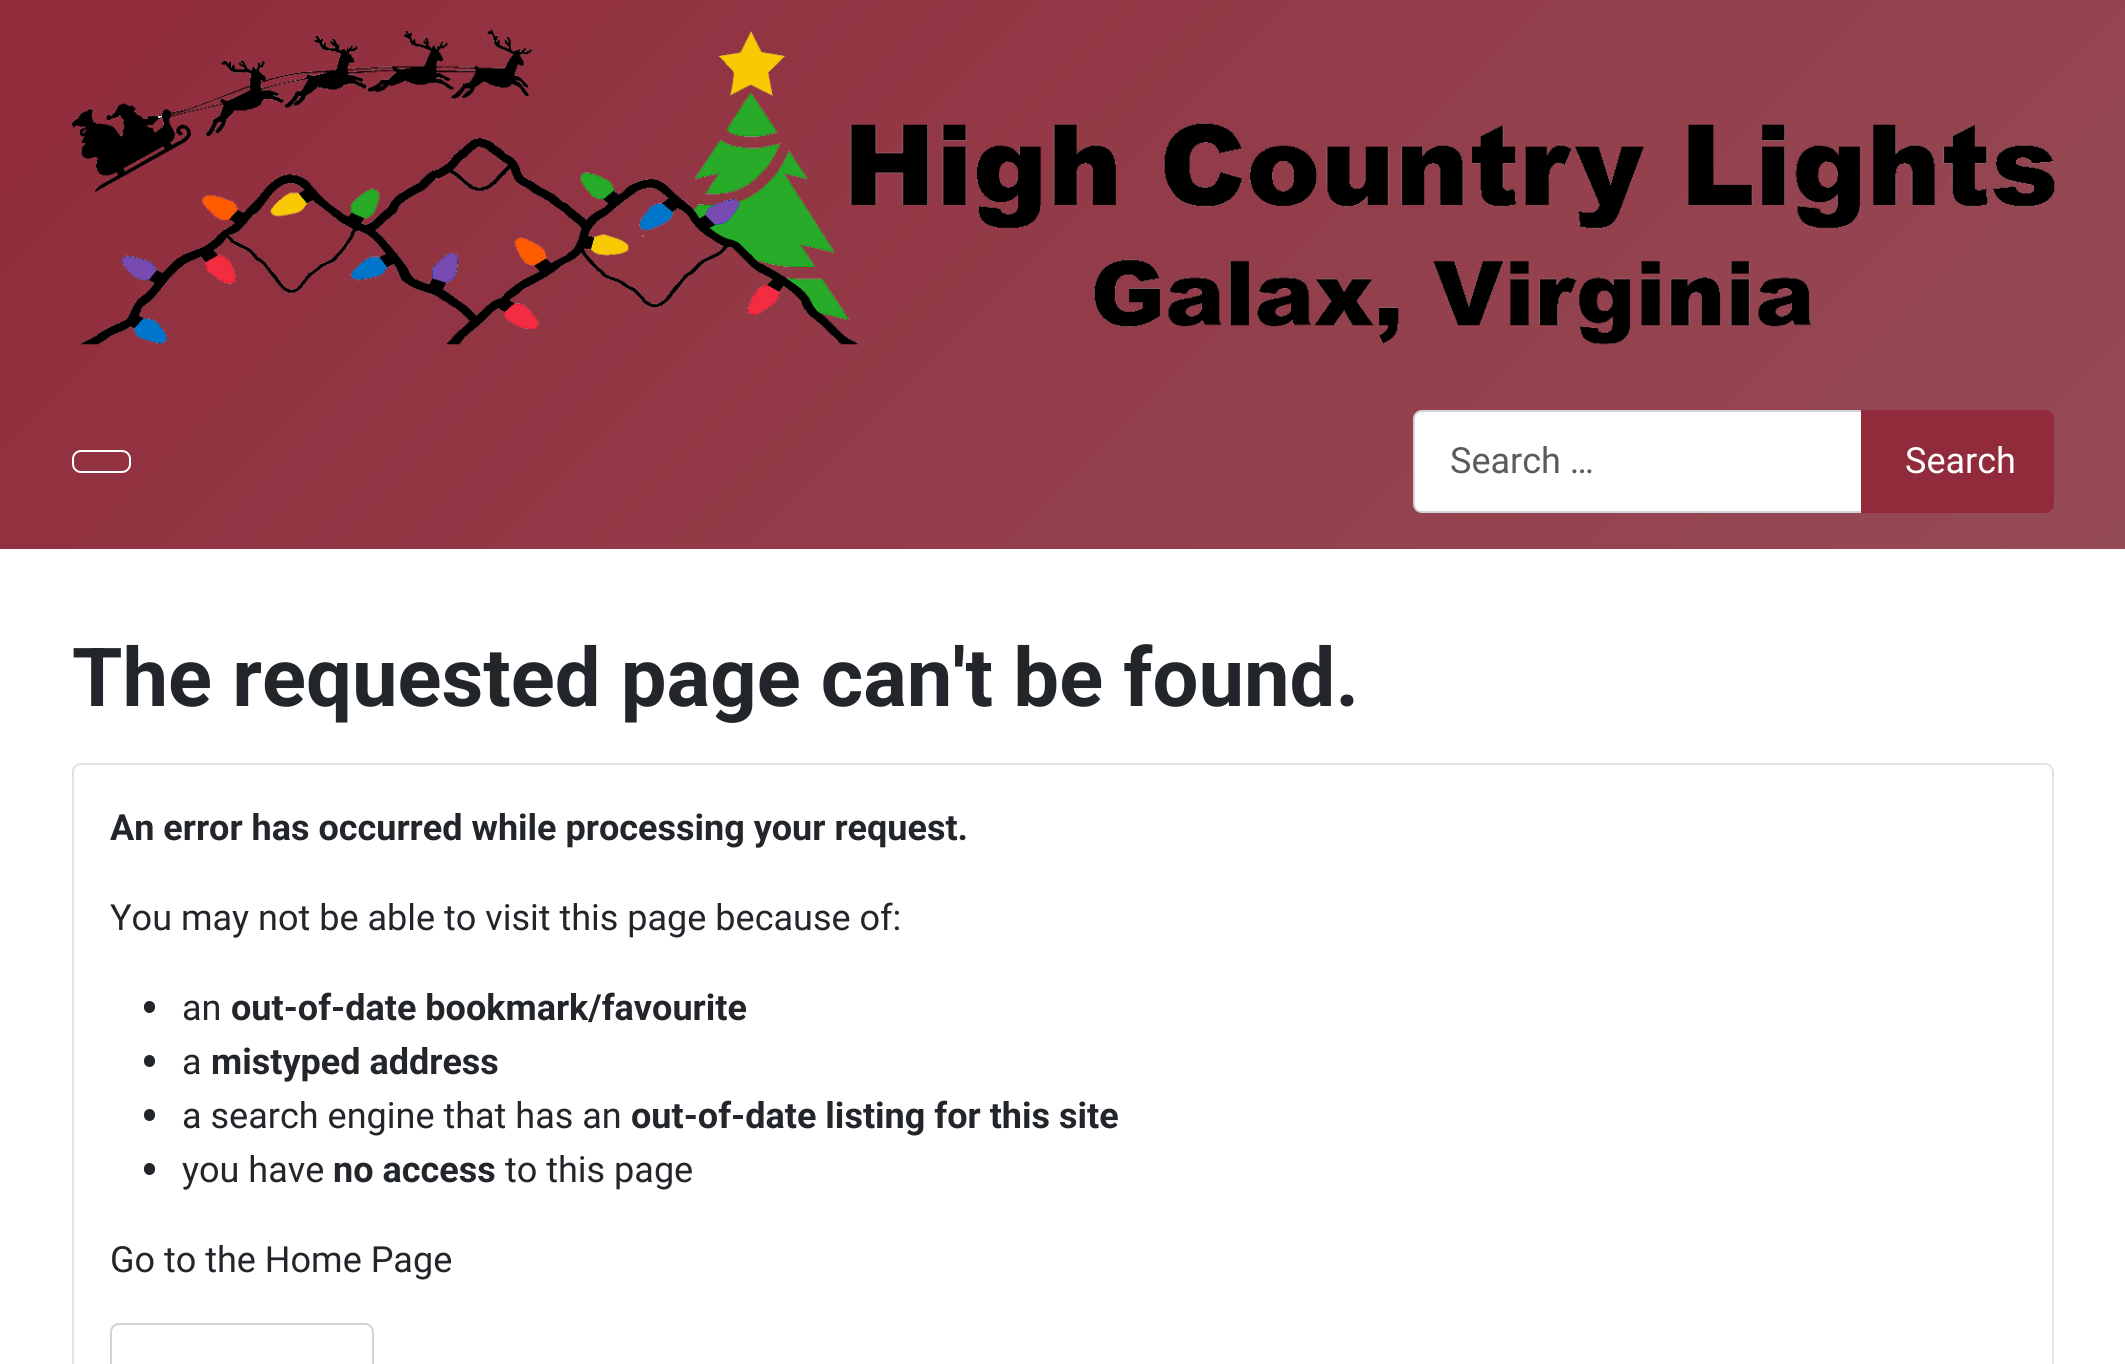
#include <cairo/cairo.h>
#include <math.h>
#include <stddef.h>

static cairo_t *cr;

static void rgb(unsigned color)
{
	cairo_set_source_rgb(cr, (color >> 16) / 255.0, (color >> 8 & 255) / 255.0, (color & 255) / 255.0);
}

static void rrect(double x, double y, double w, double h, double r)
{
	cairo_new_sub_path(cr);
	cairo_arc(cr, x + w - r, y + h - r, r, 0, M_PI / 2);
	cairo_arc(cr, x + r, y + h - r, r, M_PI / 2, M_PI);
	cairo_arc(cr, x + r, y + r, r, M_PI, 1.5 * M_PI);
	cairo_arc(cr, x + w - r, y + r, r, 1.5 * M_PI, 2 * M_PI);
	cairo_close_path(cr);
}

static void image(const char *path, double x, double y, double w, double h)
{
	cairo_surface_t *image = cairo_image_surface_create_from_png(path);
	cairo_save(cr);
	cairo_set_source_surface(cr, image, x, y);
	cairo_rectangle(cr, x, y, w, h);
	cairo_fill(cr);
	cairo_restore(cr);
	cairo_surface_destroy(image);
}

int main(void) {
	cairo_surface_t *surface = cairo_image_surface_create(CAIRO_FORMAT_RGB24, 2125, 1364);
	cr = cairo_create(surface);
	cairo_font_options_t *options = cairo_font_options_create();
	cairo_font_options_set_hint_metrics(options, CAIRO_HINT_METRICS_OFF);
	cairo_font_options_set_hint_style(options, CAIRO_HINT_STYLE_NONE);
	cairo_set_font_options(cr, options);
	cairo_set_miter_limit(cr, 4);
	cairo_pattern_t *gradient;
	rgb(0xffffff);
	cairo_paint(cr);
	gradient = cairo_pattern_create_linear(394, -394, 1732, 943);
	cairo_pattern_add_color_stop_rgba(gradient, 0, 0.569, 0.169, 0.231, 1);
	cairo_pattern_add_color_stop_rgba(gradient, 1, 0.584, 0.294, 0.337, 1);
	cairo_set_source(cr, gradient);
	cairo_pattern_destroy(gradient);
	cairo_rectangle(cr, 0, 0, 2125, 549);
	cairo_fill(cr);
	image("img/1.png", 72, 29, 1983, 316);
	rrect(73, 451, 57, 21, 8);
	rgb(0xffffff);
	cairo_stroke(cr);
	cairo_new_path(cr);
	cairo_move_to(cr, 1422, 411);
	cairo_line_to(cr, 1862, 411);
	cairo_line_to(cr, 1862, 512);
	cairo_line_to(cr, 1422, 512);
	cairo_curve_to(cr, 1417.5, 512, 1414, 508.5, 1414, 504);
	cairo_line_to(cr, 1414, 419);
	cairo_curve_to(cr, 1414, 414.5, 1417.5, 411, 1422, 411);
	cairo_close_path(cr);
	cairo_fill_preserve(cr);
	rgb(0xced4da);
	cairo_stroke(cr);
	rgb(0x912b3b);
	cairo_new_path(cr);
	cairo_move_to(cr, 1862, 411);
	cairo_line_to(cr, 2045, 411);
	cairo_curve_to(cr, 2049.5, 411, 2053, 414.5, 2053, 419);
	cairo_line_to(cr, 2053, 504);
	cairo_curve_to(cr, 2053, 508.5, 2049.5, 512, 2045, 512);
	cairo_line_to(cr, 1862, 512);
	cairo_close_path(cr);
	cairo_fill_preserve(cr);
	cairo_stroke(cr);
	rrect(73, 764, 1980, 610, 8);
	rgb(0xdfe3e7);
	cairo_stroke(cr);
	rgb(0x22262a);
	rrect(144, 1001, 11, 12, 5.5);
	cairo_fill(cr);
	rrect(144, 1055, 11, 12, 5.5);
	cairo_fill(cr);
	rrect(144, 1109, 11, 12, 5.5);
	cairo_fill(cr);
	rrect(144, 1163, 11, 12, 5.5);
	cairo_fill(cr);
	rrect(111, 1324, 262, 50, 8);
	rgb(0xced4da);
	cairo_stroke(cr);
	cairo_select_font_face(cr, "Roboto", CAIRO_FONT_SLANT_NORMAL, CAIRO_FONT_WEIGHT_NORMAL);
	cairo_set_font_size(cr, 36);
	rgb(0x595c5f);
	cairo_move_to(cr, 1450, 473);
	cairo_show_text(cr, "Search …");
	rgb(0xffffff);
	cairo_move_to(cr, 1905, 473);
	cairo_show_text(cr, "Search");
	cairo_select_font_face(cr, "Roboto", CAIRO_FONT_SLANT_NORMAL, CAIRO_FONT_WEIGHT_BOLD);
	cairo_set_font_size(cr, 81.4);
	rgb(0x22262a);
	cairo_move_to(cr, 72, 706);
	cairo_show_text(cr, "The requested page can't be found.");
	cairo_set_font_size(cr, 36);
	cairo_move_to(cr, 110, 840);
	cairo_show_text(cr, "An error has occurred while processing your request.");
	cairo_select_font_face(cr, "Roboto", CAIRO_FONT_SLANT_NORMAL, CAIRO_FONT_WEIGHT_NORMAL);
	cairo_move_to(cr, 110, 930);
	cairo_show_text(cr, "You may not be able to visit this page because of:");
	cairo_move_to(cr, 182, 1020);
	cairo_show_text(cr, "an");
	cairo_select_font_face(cr, "Roboto", CAIRO_FONT_SLANT_NORMAL, CAIRO_FONT_WEIGHT_BOLD);
	cairo_move_to(cr, 231, 1020);
	cairo_show_text(cr, "out-of-date bookmark/favourite");
	cairo_select_font_face(cr, "Roboto", CAIRO_FONT_SLANT_NORMAL, CAIRO_FONT_WEIGHT_NORMAL);
	cairo_move_to(cr, 182, 1074);
	cairo_show_text(cr, "a");
	cairo_select_font_face(cr, "Roboto", CAIRO_FONT_SLANT_NORMAL, CAIRO_FONT_WEIGHT_BOLD);
	cairo_move_to(cr, 211, 1074);
	cairo_show_text(cr, "mistyped address");
	cairo_select_font_face(cr, "Roboto", CAIRO_FONT_SLANT_NORMAL, CAIRO_FONT_WEIGHT_NORMAL);
	cairo_move_to(cr, 182, 1128);
	cairo_show_text(cr, "a search engine that has an");
	cairo_select_font_face(cr, "Roboto", CAIRO_FONT_SLANT_NORMAL, CAIRO_FONT_WEIGHT_BOLD);
	cairo_move_to(cr, 631, 1128);
	cairo_show_text(cr, "out-of-date listing for this site");
	cairo_select_font_face(cr, "Roboto", CAIRO_FONT_SLANT_NORMAL, CAIRO_FONT_WEIGHT_NORMAL);
	cairo_move_to(cr, 182, 1182);
	cairo_show_text(cr, "you have");
	cairo_select_font_face(cr, "Roboto", CAIRO_FONT_SLANT_NORMAL, CAIRO_FONT_WEIGHT_BOLD);
	cairo_move_to(cr, 333, 1182);
	cairo_show_text(cr, "no access");
	cairo_select_font_face(cr, "Roboto", CAIRO_FONT_SLANT_NORMAL, CAIRO_FONT_WEIGHT_NORMAL);
	cairo_move_to(cr, 505, 1182);
	cairo_show_text(cr, "to this page");
	cairo_move_to(cr, 110, 1272);
	cairo_show_text(cr, "Go to the Home Page");
	cairo_surface_write_to_png(surface, "page.png");
	cairo_font_options_destroy(options);
	cairo_destroy(cr);
	cairo_surface_destroy(surface);
	return 0;
}
